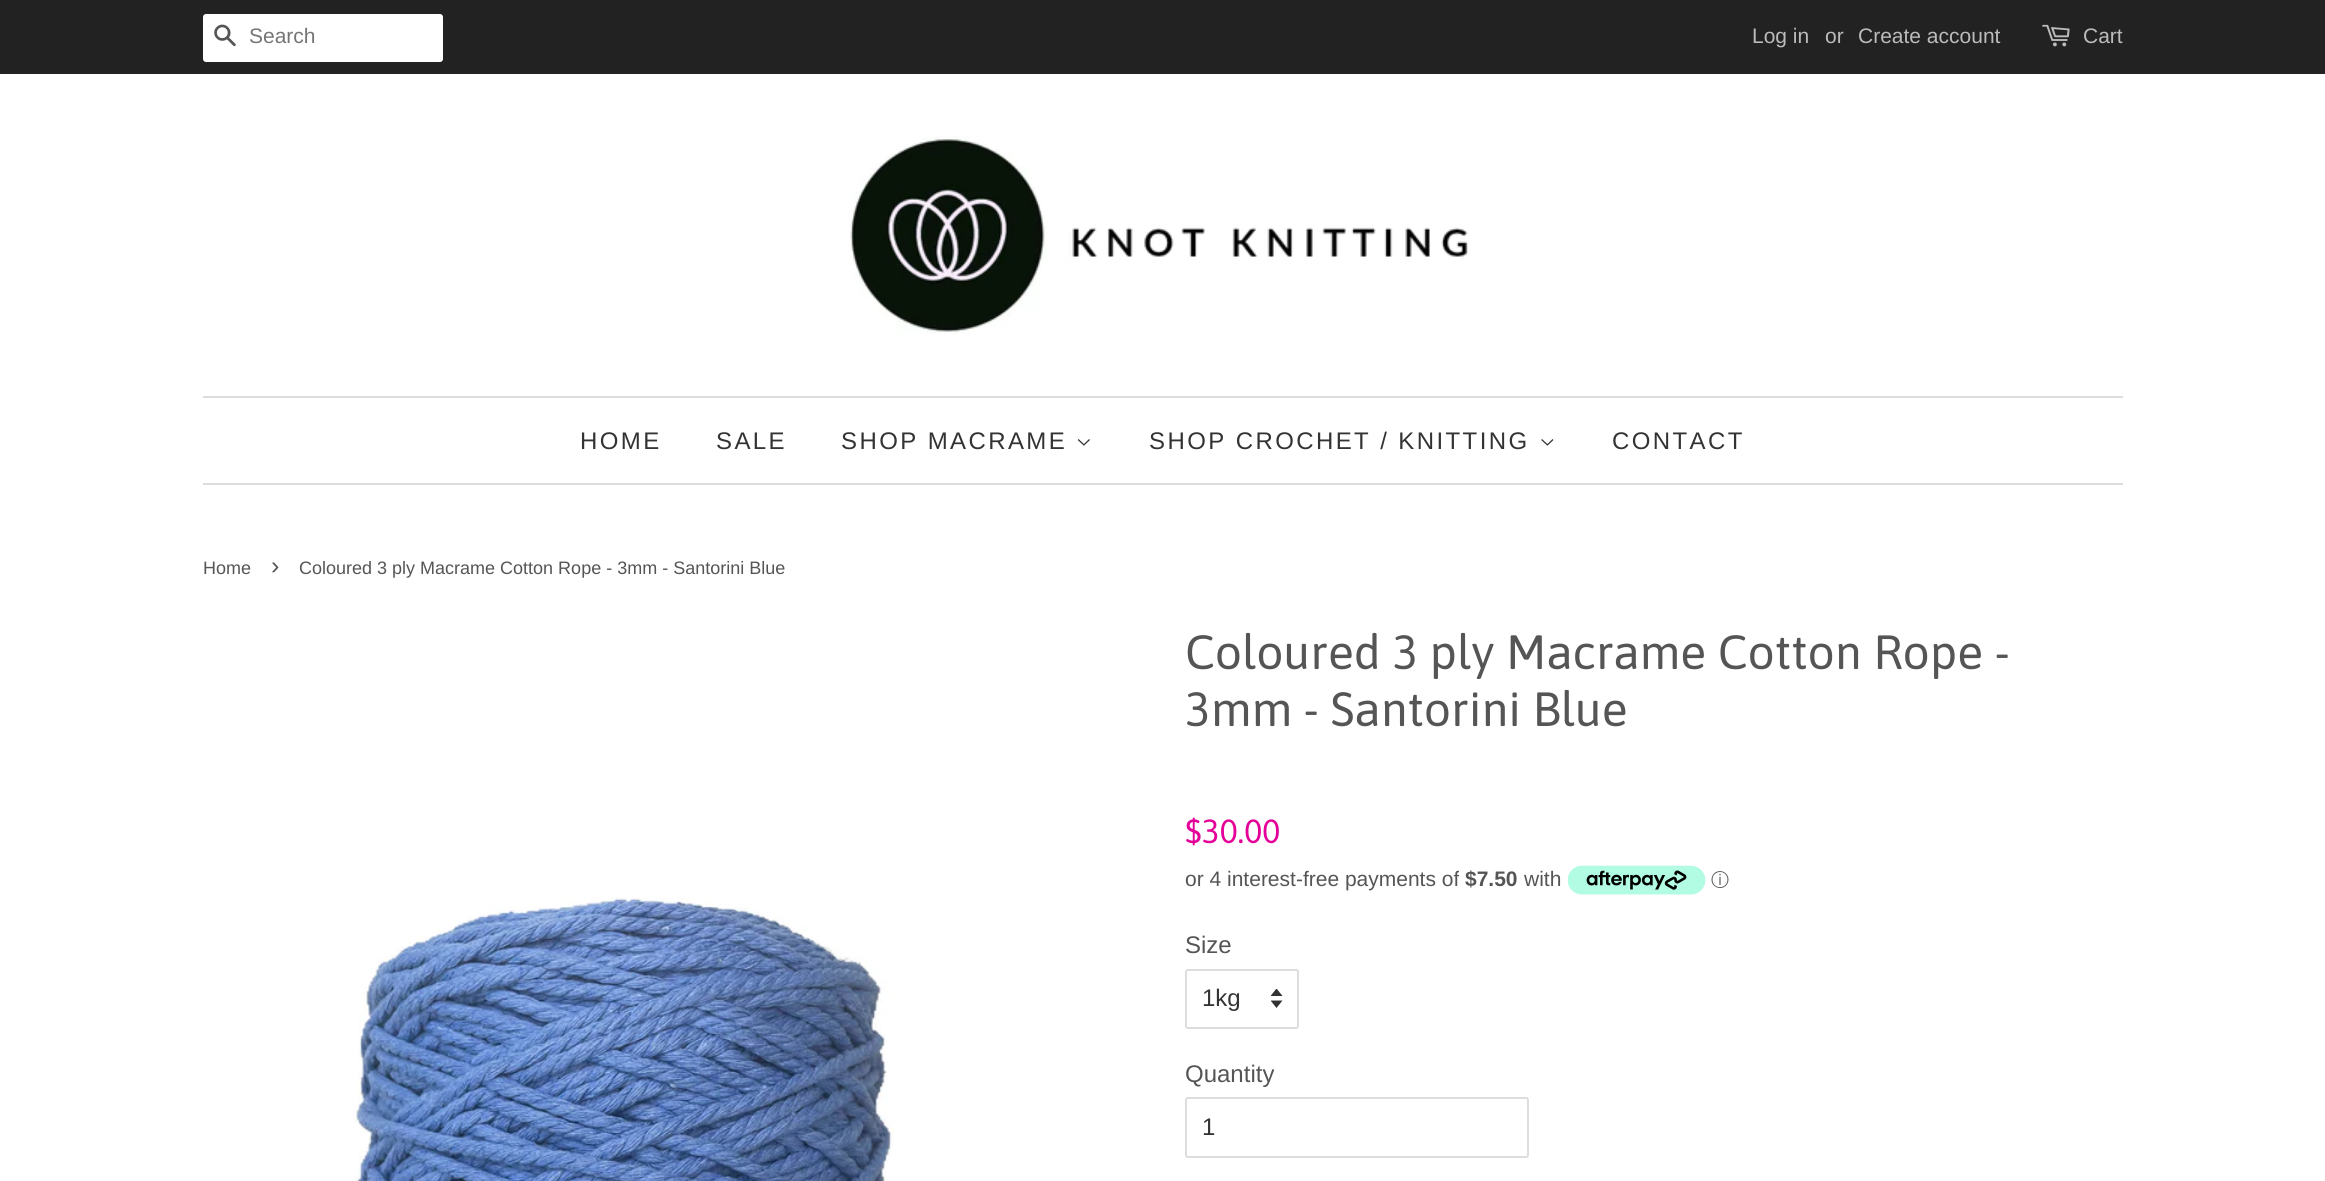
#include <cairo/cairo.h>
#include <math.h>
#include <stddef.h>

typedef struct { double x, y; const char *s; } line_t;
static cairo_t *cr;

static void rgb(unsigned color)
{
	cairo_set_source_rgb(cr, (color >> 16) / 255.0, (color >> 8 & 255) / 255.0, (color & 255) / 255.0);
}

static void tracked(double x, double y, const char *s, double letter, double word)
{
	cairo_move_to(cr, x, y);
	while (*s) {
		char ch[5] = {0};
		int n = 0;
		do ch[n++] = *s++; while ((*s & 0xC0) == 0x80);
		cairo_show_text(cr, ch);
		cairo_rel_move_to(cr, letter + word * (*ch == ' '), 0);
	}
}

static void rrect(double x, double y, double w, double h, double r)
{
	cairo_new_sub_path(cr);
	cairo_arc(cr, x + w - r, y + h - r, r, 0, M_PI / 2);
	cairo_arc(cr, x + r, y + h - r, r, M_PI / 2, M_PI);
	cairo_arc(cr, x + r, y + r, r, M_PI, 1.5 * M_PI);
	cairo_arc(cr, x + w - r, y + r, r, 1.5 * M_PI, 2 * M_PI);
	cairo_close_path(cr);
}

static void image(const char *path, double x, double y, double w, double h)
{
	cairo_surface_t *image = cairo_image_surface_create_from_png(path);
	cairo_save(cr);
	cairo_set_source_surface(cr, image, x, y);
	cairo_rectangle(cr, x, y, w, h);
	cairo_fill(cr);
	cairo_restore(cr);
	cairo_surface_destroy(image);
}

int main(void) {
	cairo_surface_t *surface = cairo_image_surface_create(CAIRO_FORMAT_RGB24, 2325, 1181);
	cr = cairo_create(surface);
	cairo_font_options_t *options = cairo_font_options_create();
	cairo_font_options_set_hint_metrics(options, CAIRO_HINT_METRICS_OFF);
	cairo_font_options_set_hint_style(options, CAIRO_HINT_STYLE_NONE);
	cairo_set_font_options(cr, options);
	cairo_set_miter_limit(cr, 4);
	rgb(0xffffff);
	cairo_paint(cr);
	rgb(0x222222);
	cairo_rectangle(cr, 0, 0, 2325, 74);
	cairo_fill(cr);
	rgb(0xffffff);
	rrect(203, 14, 240, 48, 3);
	cairo_fill(cr);
	image("img/1.png", 214, 24, 22, 23);
	image("img/2.png", 2042, 24, 28, 23);
	image("img/3.png", 849, 136, 619, 198);
	rgb(0xdddddd);
	cairo_rectangle(cr, 203, 396, 1920, 2);
	cairo_fill(cr);
	cairo_rectangle(cr, 203, 483, 1920, 2);
	cairo_fill(cr);
	image("img/4.png", 1077, 439, 13, 7);
	image("img/5.png", 1541, 439, 13, 7);
	image("img/6.png", 353, 897, 541, 284);
	image("img/7.png", 1568, 865, 138, 30);
	image("img/8.png", 1271, 989, 12, 19);
	rrect(1186, 970, 112, 58, 2);
	cairo_stroke(cr);
	rrect(1186, 1098, 342, 59, 2);
	cairo_stroke(cr);
	cairo_select_font_face(cr, "Liberation Sans", CAIRO_FONT_SLANT_NORMAL, CAIRO_FONT_WEIGHT_NORMAL);
	cairo_set_font_size(cr, 21);
	rgb(0x757575);
	cairo_move_to(cr, 249, 43);
	cairo_show_text(cr, "Search");
	rgb(0xbbbbbb);
	{
		static const line_t items[] = {
			{1752, 43, "Log in"},
			{1825, 43, "or"},
			{1858, 43, "Create account"},
			{2083, 43, "Cart"},
		};
		for (size_t i = 0; i < sizeof items / sizeof *items; i++) {
			cairo_move_to(cr, items[i].x, items[i].y);
			cairo_show_text(cr, items[i].s);
		}
	}
	cairo_set_font_size(cr, 24);
	rgb(0x333333);
	{
		static const line_t items[] = {
			{580, 449, "HOME"},
			{716, 449, "SALE"},
			{841, 449, "SHOP MACRAME"},
			{1149, 449, "SHOP CROCHET / KNITTING"},
			{1612, 449, "CONTACT"},
		};
		for (size_t i = 0; i < sizeof items / sizeof *items; i++) {
			tracked(items[i].x, items[i].y, items[i].s, 2.4, 0);
		}
	}
	cairo_set_font_size(cr, 18);
	rgb(0x555555);
	cairo_move_to(cr, 203, 574);
	cairo_show_text(cr, "Home");
	cairo_set_font_size(cr, 25);
	cairo_move_to(cr, 271, 574);
	cairo_show_text(cr, "›");
	cairo_set_font_size(cr, 18);
	cairo_move_to(cr, 299, 574);
	cairo_show_text(cr, "Coloured 3 ply Macrame Cotton Rope - 3mm - Santorini Blue");
	cairo_select_font_face(cr, "Asap", CAIRO_FONT_SLANT_NORMAL, CAIRO_FONT_WEIGHT_NORMAL);
	cairo_set_font_size(cr, 48);
	cairo_move_to(cr, 1185, 669);
	cairo_show_text(cr, "Coloured 3 ply Macrame Cotton Rope -");
	cairo_move_to(cr, 1185, 726);
	cairo_show_text(cr, "3mm - Santorini Blue");
	cairo_set_font_size(cr, 33.5);
	rgb(0xe40098);
	cairo_move_to(cr, 1185, 843);
	cairo_show_text(cr, "$30.00");
	cairo_select_font_face(cr, "Liberation Sans", CAIRO_FONT_SLANT_NORMAL, CAIRO_FONT_WEIGHT_NORMAL);
	cairo_set_font_size(cr, 21);
	rgb(0x555555);
	cairo_move_to(cr, 1185, 886);
	cairo_show_text(cr, "or 4 interest-free payments of");
	cairo_select_font_face(cr, "Liberation Sans", CAIRO_FONT_SLANT_NORMAL, CAIRO_FONT_WEIGHT_BOLD);
	cairo_move_to(cr, 1465, 886);
	cairo_show_text(cr, "$7.50");
	cairo_select_font_face(cr, "Liberation Sans", CAIRO_FONT_SLANT_NORMAL, CAIRO_FONT_WEIGHT_NORMAL);
	cairo_move_to(cr, 1524, 886);
	cairo_show_text(cr, "with");
	cairo_select_font_face(cr, "WenQuanYi Zen Hei Medium", CAIRO_FONT_SLANT_NORMAL, CAIRO_FONT_WEIGHT_NORMAL);
	cairo_set_font_size(cr, 18);
	cairo_move_to(cr, 1711, 886);
	cairo_show_text(cr, "ⓘ");
	cairo_select_font_face(cr, "Liberation Sans", CAIRO_FONT_SLANT_NORMAL, CAIRO_FONT_WEIGHT_NORMAL);
	cairo_set_font_size(cr, 24);
	cairo_move_to(cr, 1185, 953);
	cairo_show_text(cr, "Size");
	rgb(0x333333);
	cairo_move_to(cr, 1202, 1006);
	cairo_show_text(cr, "1kg");
	rgb(0x555555);
	cairo_move_to(cr, 1185, 1082);
	cairo_show_text(cr, "Quantity");
	rgb(0x333333);
	cairo_move_to(cr, 1202, 1135);
	cairo_show_text(cr, "1");
	cairo_surface_write_to_png(surface, "page.png");
	cairo_font_options_destroy(options);
	cairo_destroy(cr);
	cairo_surface_destroy(surface);
	return 0;
}
